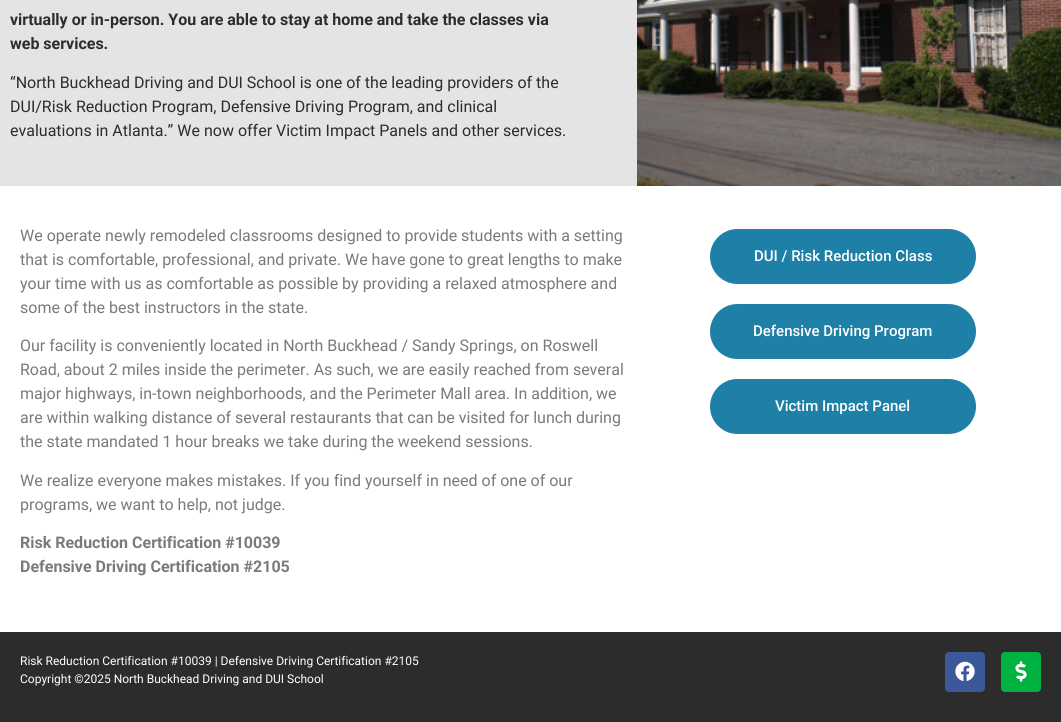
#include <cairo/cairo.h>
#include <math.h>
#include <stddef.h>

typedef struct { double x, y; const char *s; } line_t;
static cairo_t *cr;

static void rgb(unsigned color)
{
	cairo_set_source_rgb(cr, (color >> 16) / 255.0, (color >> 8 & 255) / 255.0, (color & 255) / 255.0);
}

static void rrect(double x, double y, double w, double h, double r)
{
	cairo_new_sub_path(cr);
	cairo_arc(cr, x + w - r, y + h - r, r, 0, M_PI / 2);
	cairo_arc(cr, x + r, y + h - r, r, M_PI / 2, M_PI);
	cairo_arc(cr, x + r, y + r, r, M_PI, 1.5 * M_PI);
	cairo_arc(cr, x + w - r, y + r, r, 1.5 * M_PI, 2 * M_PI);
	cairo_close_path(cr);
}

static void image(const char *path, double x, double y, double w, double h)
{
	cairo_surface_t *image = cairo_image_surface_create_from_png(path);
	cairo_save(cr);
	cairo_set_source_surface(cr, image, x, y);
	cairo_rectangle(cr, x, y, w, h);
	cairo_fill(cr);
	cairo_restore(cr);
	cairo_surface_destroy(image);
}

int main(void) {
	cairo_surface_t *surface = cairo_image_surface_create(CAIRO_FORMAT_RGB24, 1061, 722);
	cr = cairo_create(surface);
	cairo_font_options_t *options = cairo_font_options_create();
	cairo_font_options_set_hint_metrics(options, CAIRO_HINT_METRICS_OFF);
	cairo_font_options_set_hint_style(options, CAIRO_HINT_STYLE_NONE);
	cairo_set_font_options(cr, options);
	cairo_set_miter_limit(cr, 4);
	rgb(0xffffff);
	cairo_paint(cr);
	rgb(0xe4e4e4);
	cairo_rectangle(cr, 0, 0, 637, 186);
	cairo_fill(cr);
	image("img/1.png", 637, 0, 424, 186);
	rgb(0x1e80a7);
	rrect(710, 229, 266, 55, 27.5);
	cairo_fill(cr);
	rrect(710, 304, 266, 55, 27.5);
	cairo_fill(cr);
	rrect(710, 379, 266, 55, 27.5);
	cairo_fill(cr);
	rgb(0x2c2c2c);
	cairo_rectangle(cr, 0, 632, 1061, 90);
	cairo_fill(cr);
	rgb(0x3b5998);
	rrect(945, 652, 40, 40, 4);
	cairo_fill(cr);
	image("img/2.png", 955, 661, 20, 20);
	rgb(0x00b340);
	rrect(1001, 652, 40, 40, 4);
	cairo_fill(cr);
	image("img/3.png", 1015, 661, 12, 21);
	cairo_select_font_face(cr, "Roboto", CAIRO_FONT_SLANT_NORMAL, CAIRO_FONT_WEIGHT_BOLD);
	cairo_set_font_size(cr, 16);
	rgb(0x2c2c2c);
	cairo_move_to(cr, 10, 25);
	cairo_show_text(cr, "virtually or in-person. You are able to stay at home and take the classes via");
	cairo_move_to(cr, 10, 49);
	cairo_show_text(cr, "web services.");
	cairo_select_font_face(cr, "Roboto", CAIRO_FONT_SLANT_NORMAL, CAIRO_FONT_WEIGHT_NORMAL);
	{
		static const line_t items[] = {
			{10, 88, "“North Buckhead Driving and DUI School is one of the leading providers of the"},
			{10, 112, "DUI/Risk Reduction Program, Defensive Driving Program, and clinical"},
			{10, 136, "evaluations in Atlanta.” We now offer Victim Impact Panels and other services."},
		};
		for (size_t i = 0; i < sizeof items / sizeof *items; i++) {
			cairo_move_to(cr, items[i].x, items[i].y);
			cairo_show_text(cr, items[i].s);
		}
	}
	rgb(0x7a7a7a);
	{
		static const line_t items[] = {
			{20, 241, "We operate newly remodeled classrooms designed to provide students with a setting"},
			{20, 265, "that is comfortable, professional, and private. We have gone to great lengths to make"},
			{20, 289, "your time with us as comfortable as possible by providing a relaxed atmosphere and"},
			{20, 313, "some of the best instructors in the state."},
			{20, 351, "Our facility is conveniently located in North Buckhead / Sandy Springs, on Roswell"},
			{20, 375, "Road, about 2 miles inside the perimeter. As such, we are easily reached from several"},
			{20, 399, "major highways, in-town neighborhoods, and the Perimeter Mall area. In addition, we"},
			{20, 423, "are within walking distance of several restaurants that can be visited for lunch during"},
			{20, 447, "the state mandated 1 hour breaks we take during the weekend sessions."},
			{20, 486, "We realize everyone makes mistakes. If you find yourself in need of one of our"},
			{20, 510, "programs, we want to help, not judge."},
		};
		for (size_t i = 0; i < sizeof items / sizeof *items; i++) {
			cairo_move_to(cr, items[i].x, items[i].y);
			cairo_show_text(cr, items[i].s);
		}
	}
	cairo_select_font_face(cr, "Roboto", CAIRO_FONT_SLANT_NORMAL, CAIRO_FONT_WEIGHT_BOLD);
	cairo_move_to(cr, 20, 548);
	cairo_show_text(cr, "Risk Reduction Certification #10039");
	cairo_move_to(cr, 20, 572);
	cairo_show_text(cr, "Defensive Driving Certification #2105");
	cairo_select_font_face(cr, "Roboto Medium", CAIRO_FONT_SLANT_NORMAL, CAIRO_FONT_WEIGHT_NORMAL);
	cairo_set_font_size(cr, 15);
	rgb(0xffffff);
	{
		static const line_t items[] = {
			{754, 261, "DUI / Risk Reduction Class"},
			{753, 336, "Defensive Driving Program"},
			{775, 411, "Victim Impact Panel"},
		};
		for (size_t i = 0; i < sizeof items / sizeof *items; i++) {
			cairo_move_to(cr, items[i].x, items[i].y);
			cairo_show_text(cr, items[i].s);
		}
	}
	cairo_select_font_face(cr, "Roboto", CAIRO_FONT_SLANT_NORMAL, CAIRO_FONT_WEIGHT_NORMAL);
	cairo_set_font_size(cr, 12);
	cairo_move_to(cr, 20, 665);
	cairo_show_text(cr, "Risk Reduction Certification #10039 | Defensive Driving Certification #2105");
	cairo_move_to(cr, 20, 683);
	cairo_show_text(cr, "Copyright ©2025 North Buckhead Driving and DUI School");
	cairo_surface_write_to_png(surface, "page.png");
	cairo_font_options_destroy(options);
	cairo_destroy(cr);
	cairo_surface_destroy(surface);
	return 0;
}
